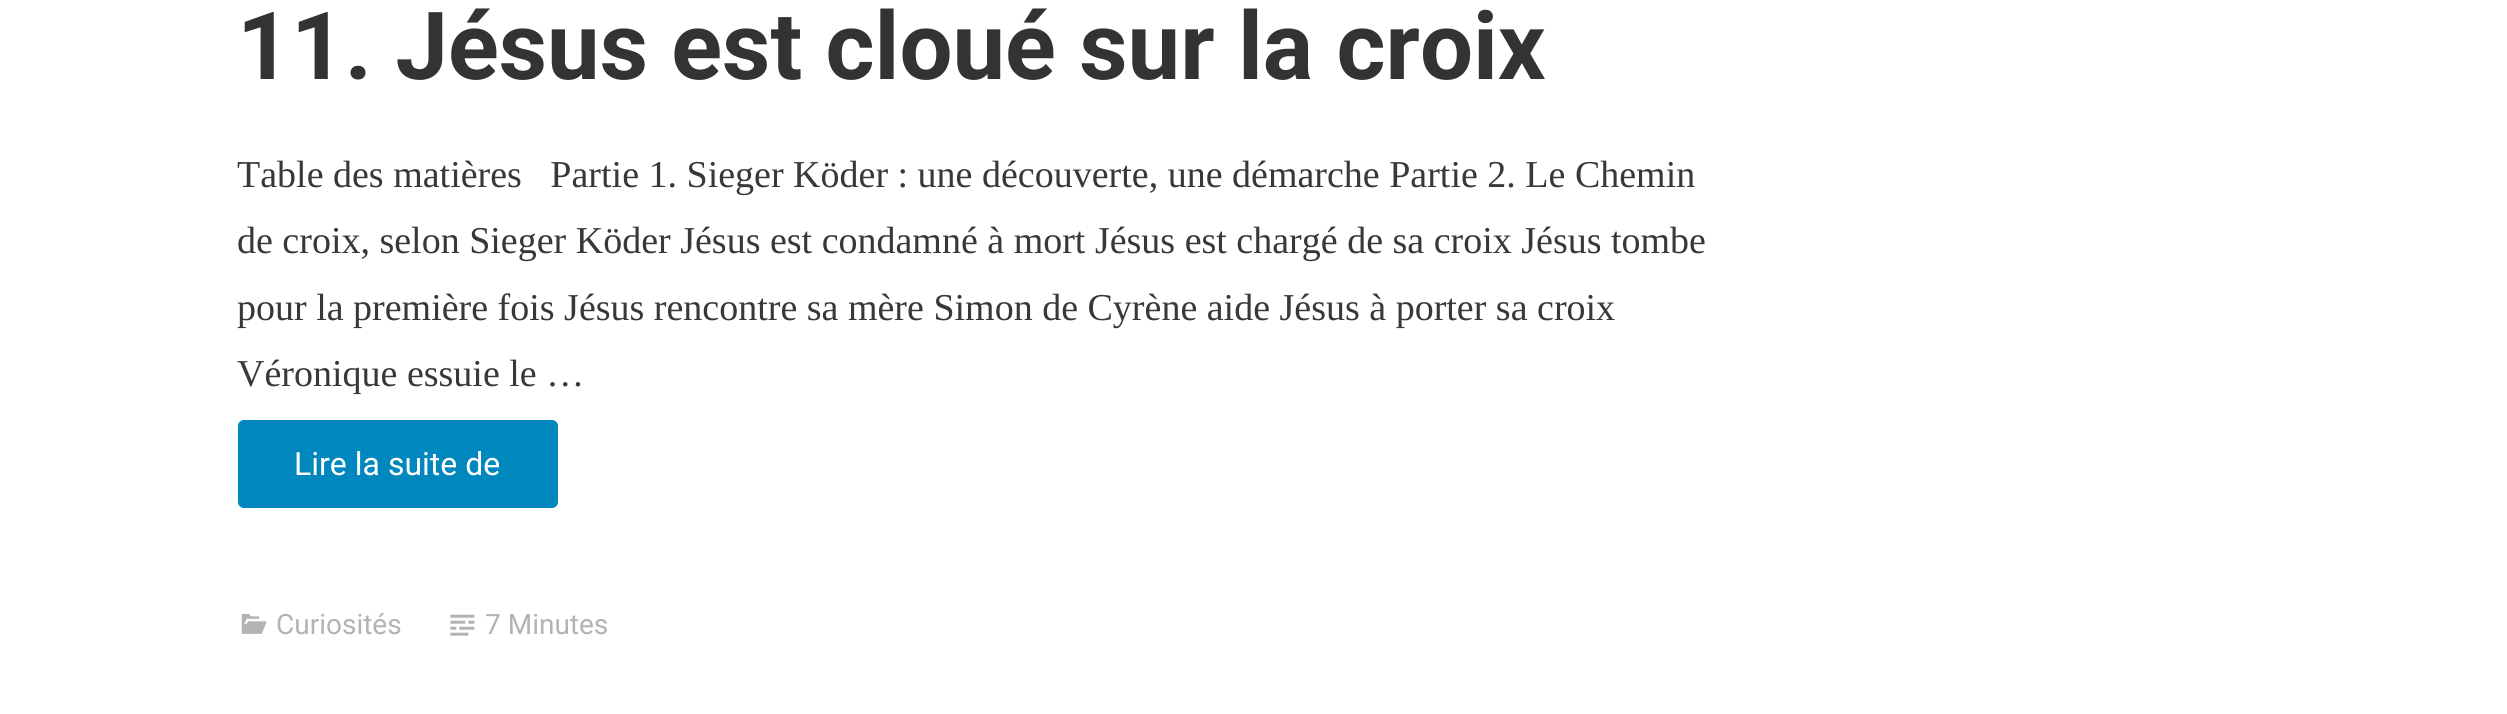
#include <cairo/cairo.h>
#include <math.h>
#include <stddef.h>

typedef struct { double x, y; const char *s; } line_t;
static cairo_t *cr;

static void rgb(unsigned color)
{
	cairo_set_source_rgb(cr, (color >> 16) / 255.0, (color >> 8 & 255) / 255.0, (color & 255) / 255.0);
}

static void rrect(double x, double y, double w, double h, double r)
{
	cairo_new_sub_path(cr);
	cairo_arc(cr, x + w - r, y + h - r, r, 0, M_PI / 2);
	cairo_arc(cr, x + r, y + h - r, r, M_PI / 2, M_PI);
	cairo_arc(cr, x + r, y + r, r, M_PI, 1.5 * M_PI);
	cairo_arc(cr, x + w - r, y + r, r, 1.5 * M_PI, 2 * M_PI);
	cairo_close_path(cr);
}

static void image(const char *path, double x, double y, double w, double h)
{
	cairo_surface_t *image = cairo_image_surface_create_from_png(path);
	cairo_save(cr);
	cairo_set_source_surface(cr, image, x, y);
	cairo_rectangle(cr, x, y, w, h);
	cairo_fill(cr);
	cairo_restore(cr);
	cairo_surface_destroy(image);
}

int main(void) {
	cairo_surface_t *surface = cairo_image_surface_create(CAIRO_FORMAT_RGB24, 2507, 714);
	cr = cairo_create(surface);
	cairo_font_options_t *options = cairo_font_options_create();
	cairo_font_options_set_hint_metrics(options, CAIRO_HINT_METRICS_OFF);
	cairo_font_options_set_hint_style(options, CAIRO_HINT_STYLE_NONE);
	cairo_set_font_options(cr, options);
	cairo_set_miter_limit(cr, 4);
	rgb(0xffffff);
	cairo_paint(cr);
	rgb(0x0087be);
	rrect(238, 420, 320, 88, 6);
	cairo_fill(cr);
	image("img/1.png", 241, 613, 26, 21);
	image("img/2.png", 450, 614, 25, 22);
	cairo_select_font_face(cr, "Roboto", CAIRO_FONT_SLANT_NORMAL, CAIRO_FONT_WEIGHT_BOLD);
	cairo_set_font_size(cr, 94);
	rgb(0x333332);
	cairo_move_to(cr, 237, 79);
	cairo_show_text(cr, "11. Jésus est cloué sur la croix");
	cairo_select_font_face(cr, "Liberation Serif", CAIRO_FONT_SLANT_NORMAL, CAIRO_FONT_WEIGHT_NORMAL);
	cairo_set_font_size(cr, 38);
	rgb(0x383838);
	{
		static const line_t items[] = {
			{237, 187, "Table des matières   Partie 1. Sieger Köder : une découverte, une démarche Partie 2. Le Chemin"},
			{237, 253, "de croix, selon Sieger Köder Jésus est condamné à mort Jésus est chargé de sa croix Jésus tombe"},
			{237, 320, "pour la première fois Jésus rencontre sa mère Simon de Cyrène aide Jésus à porter sa croix"},
			{237, 386, "Véronique essuie le …"},
		};
		for (size_t i = 0; i < sizeof items / sizeof *items; i++) {
			cairo_move_to(cr, items[i].x, items[i].y);
			cairo_show_text(cr, items[i].s);
		}
	}
	cairo_select_font_face(cr, "Roboto", CAIRO_FONT_SLANT_NORMAL, CAIRO_FONT_WEIGHT_NORMAL);
	cairo_set_font_size(cr, 32);
	rgb(0xffffff);
	cairo_move_to(cr, 294, 475);
	cairo_show_text(cr, "Lire la suite de");
	cairo_set_font_size(cr, 28);
	rgb(0xb3b3b1);
	cairo_move_to(cr, 276, 634);
	cairo_show_text(cr, "Curiosités");
	cairo_move_to(cr, 485, 634);
	cairo_show_text(cr, "7 Minutes");
	cairo_surface_write_to_png(surface, "page.png");
	cairo_font_options_destroy(options);
	cairo_destroy(cr);
	cairo_surface_destroy(surface);
	return 0;
}
